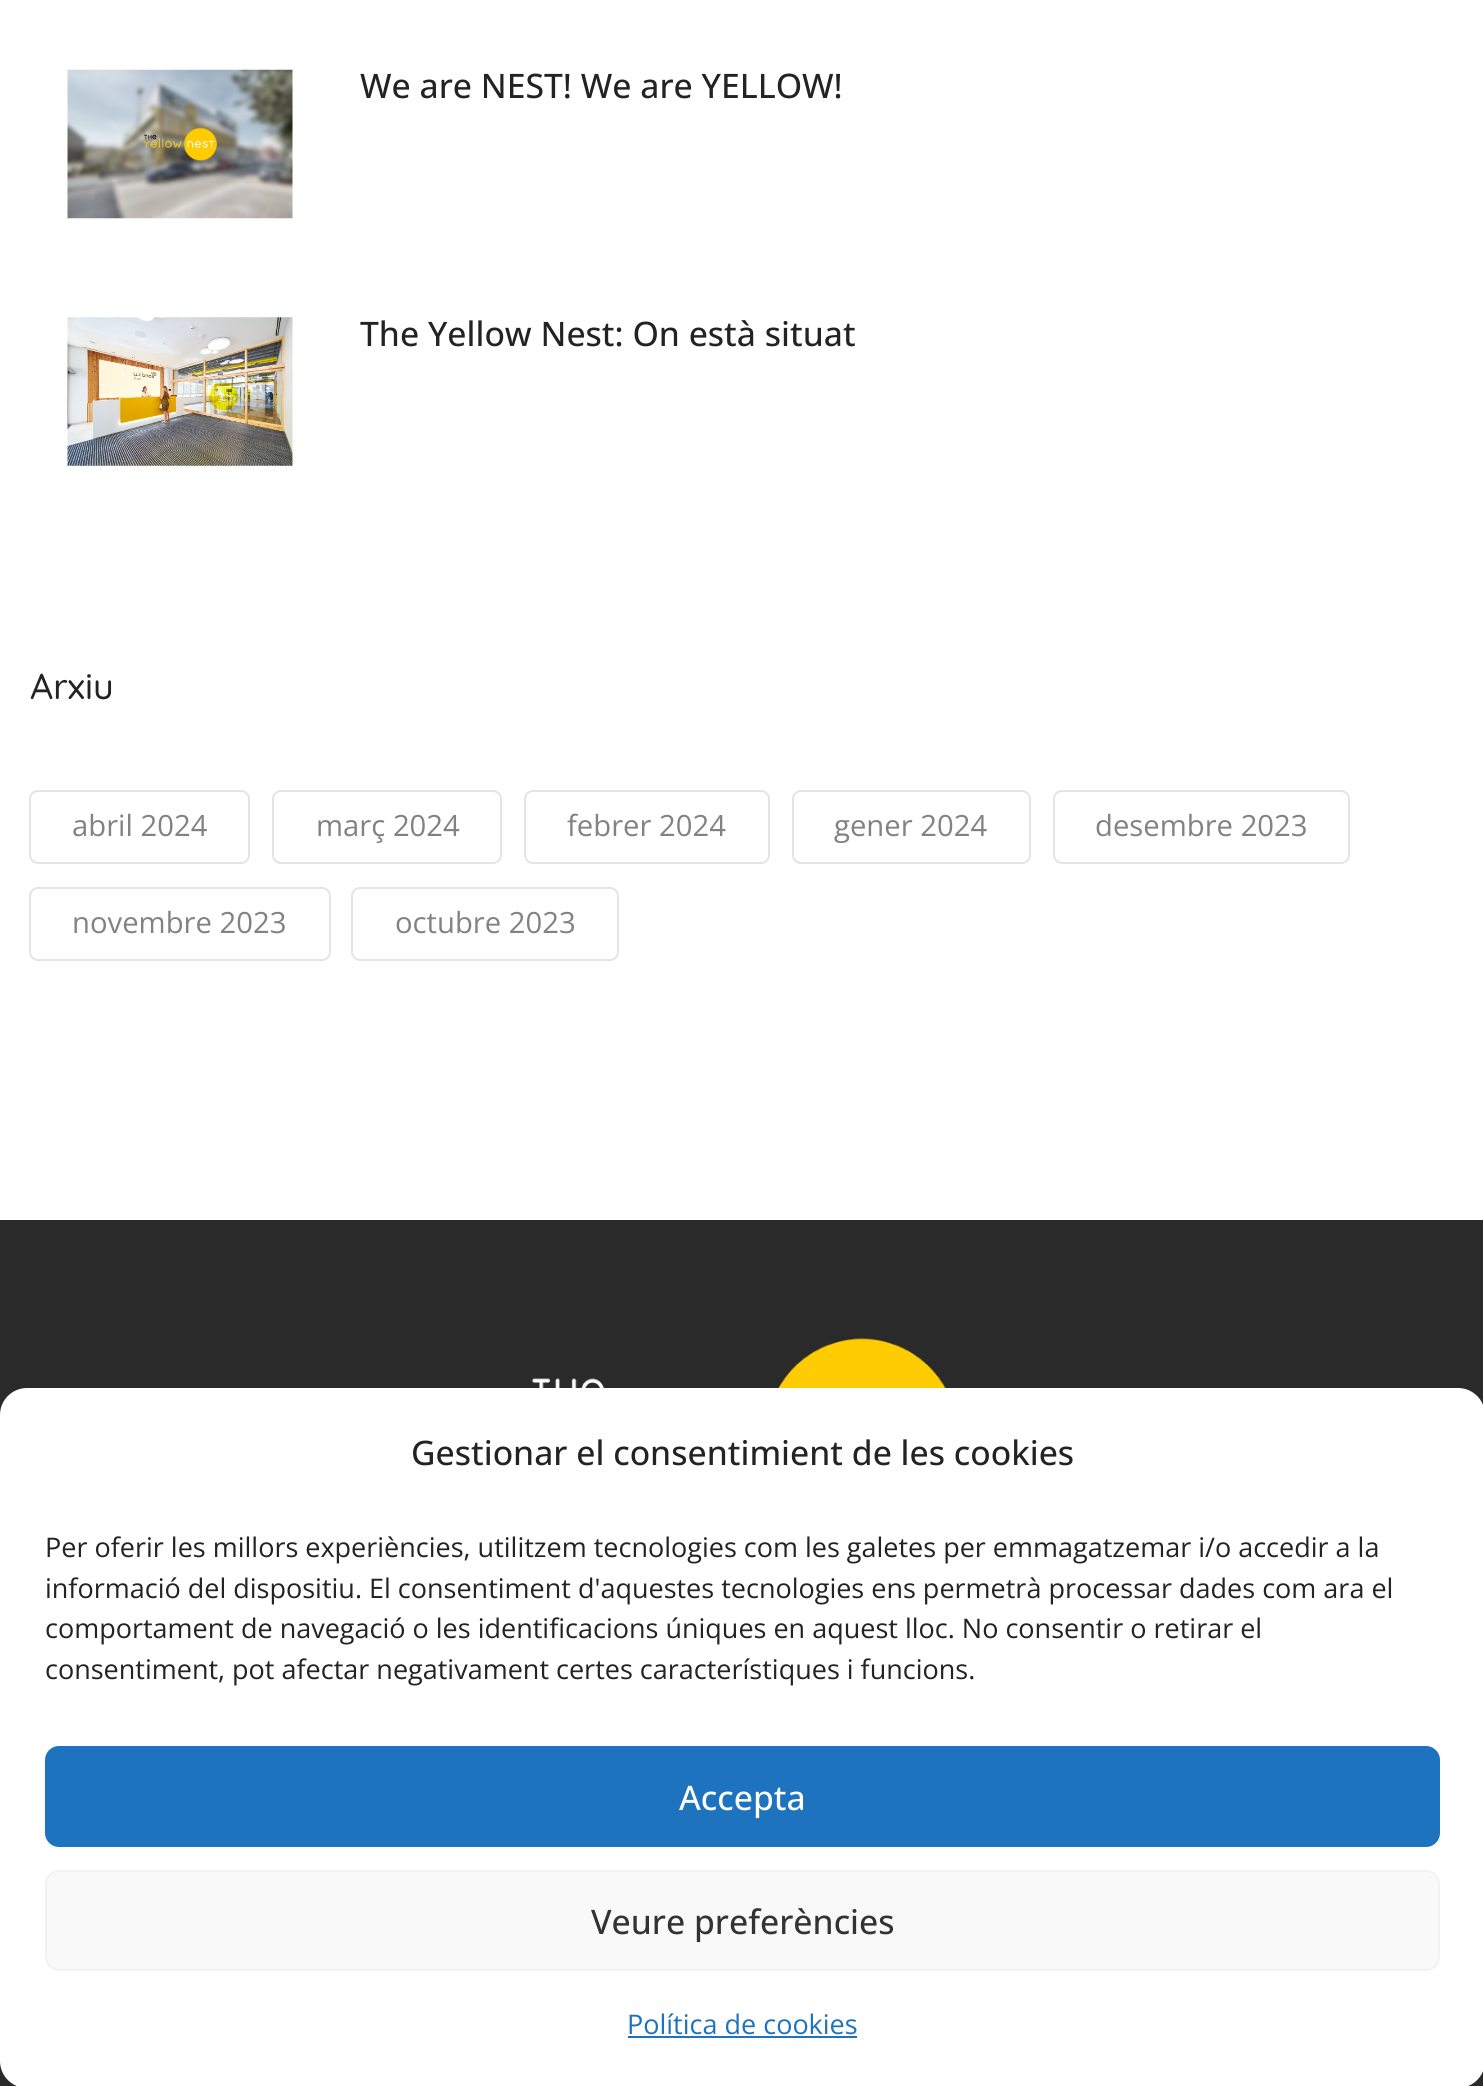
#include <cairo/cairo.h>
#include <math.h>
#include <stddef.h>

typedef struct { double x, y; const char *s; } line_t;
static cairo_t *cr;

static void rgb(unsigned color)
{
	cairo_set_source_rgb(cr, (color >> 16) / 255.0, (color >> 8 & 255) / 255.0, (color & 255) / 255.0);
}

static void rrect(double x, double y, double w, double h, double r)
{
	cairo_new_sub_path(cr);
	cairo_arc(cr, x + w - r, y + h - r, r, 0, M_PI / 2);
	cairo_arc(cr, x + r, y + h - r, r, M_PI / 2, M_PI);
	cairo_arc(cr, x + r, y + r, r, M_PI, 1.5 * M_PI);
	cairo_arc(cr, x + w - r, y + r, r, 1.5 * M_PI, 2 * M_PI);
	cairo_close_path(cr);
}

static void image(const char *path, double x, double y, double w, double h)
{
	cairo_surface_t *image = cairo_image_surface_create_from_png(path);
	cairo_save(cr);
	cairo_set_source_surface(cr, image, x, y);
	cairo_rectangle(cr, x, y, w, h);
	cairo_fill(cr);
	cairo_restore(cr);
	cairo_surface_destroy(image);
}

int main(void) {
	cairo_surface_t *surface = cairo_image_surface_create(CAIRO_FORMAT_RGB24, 1483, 2086);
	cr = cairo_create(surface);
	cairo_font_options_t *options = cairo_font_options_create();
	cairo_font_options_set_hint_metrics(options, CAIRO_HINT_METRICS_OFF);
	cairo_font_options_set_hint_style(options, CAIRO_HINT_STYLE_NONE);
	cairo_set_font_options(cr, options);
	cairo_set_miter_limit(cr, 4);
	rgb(0xffffff);
	cairo_paint(cr);
	image("img/1.png", 67, 69, 226, 150);
	image("img/2.png", 67, 317, 226, 149);
	rrect(30, 791, 219, 72, 8);
	rgb(0xe4e4e4);
	cairo_stroke(cr);
	rrect(273, 791, 228, 72, 8);
	cairo_stroke(cr);
	rrect(525, 791, 244, 72, 8);
	cairo_stroke(cr);
	rrect(793, 791, 237, 72, 8);
	cairo_stroke(cr);
	rrect(1054, 791, 295, 72, 8);
	cairo_stroke(cr);
	rrect(30, 888, 300, 72, 8);
	cairo_stroke(cr);
	rrect(352, 888, 266, 72, 8);
	cairo_stroke(cr);
	rgb(0x2a2a2a);
	cairo_rectangle(cr, 0, 1220, 1483, 866);
	cairo_fill(cr);
	image("img/3.png", 532, 1338, 414, 50);
	rgb(0xffffff);
	rrect(0, 1388, 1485, 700, 27);
	cairo_fill(cr);
	rgb(0x1e73be);
	rrect(46, 1747, 1393, 99, 13);
	cairo_fill_preserve(cr);
	cairo_stroke(cr);
	rgb(0xf9f9f9);
	rrect(46, 1871, 1393, 99, 13);
	cairo_fill_preserve(cr);
	rgb(0xf2f2f2);
	cairo_stroke(cr);
	rgb(0x1e73be);
	cairo_rectangle(cr, 628, 2036, 229, 2);
	cairo_fill(cr);
	cairo_select_font_face(cr, "Open Sans Medium", CAIRO_FONT_SLANT_NORMAL, CAIRO_FONT_WEIGHT_NORMAL);
	cairo_set_font_size(cr, 33.75);
	rgb(0x232323);
	cairo_move_to(cr, 360, 98);
	cairo_show_text(cr, "We are NEST! We are YELLOW!");
	cairo_move_to(cr, 360, 346);
	cairo_show_text(cr, "The Yellow Nest: On està situat");
	cairo_select_font_face(cr, "Quicksand Medium", CAIRO_FONT_SLANT_NORMAL, CAIRO_FONT_WEIGHT_NORMAL);
	cairo_set_font_size(cr, 36);
	cairo_move_to(cr, 30, 699);
	cairo_show_text(cr, "Arxiu");
	cairo_select_font_face(cr, "Open Sans", CAIRO_FONT_SLANT_NORMAL, CAIRO_FONT_WEIGHT_NORMAL);
	cairo_set_font_size(cr, 29.25);
	rgb(0x828282);
	{
		static const line_t items[] = {
			{72, 836, "abril 2024"},
			{316, 836, "març 2024"},
			{567, 836, "febrer 2024"},
			{834, 836, "gener 2024"},
			{1095, 836, "desembre 2023"},
			{72, 933, "novembre 2023"},
			{395, 933, "octubre 2023"},
		};
		for (size_t i = 0; i < sizeof items / sizeof *items; i++) {
			cairo_move_to(cr, items[i].x, items[i].y);
			cairo_show_text(cr, items[i].s);
		}
	}
	cairo_select_font_face(cr, "Open Sans Medium", CAIRO_FONT_SLANT_NORMAL, CAIRO_FONT_WEIGHT_NORMAL);
	cairo_set_font_size(cr, 33.75);
	rgb(0x232323);
	cairo_move_to(cr, 411, 1465);
	cairo_show_text(cr, "Gestionar el consentimient de les cookies");
	cairo_select_font_face(cr, "Open Sans", CAIRO_FONT_SLANT_NORMAL, CAIRO_FONT_WEIGHT_NORMAL);
	cairo_set_font_size(cr, 27);
	{
		static const line_t items[] = {
			{45, 1557, "Per oferir les millors experiències, utilitzem tecnologies com les galetes per emmagatzemar i/o accedir a la"},
			{45, 1598, "informació del dispositiu. El consentiment d'aquestes tecnologies ens permetrà processar dades com ara el"},
			{45, 1638, "comportament de navegació o les identificacions úniques en aquest lloc. No consentir o retirar el"},
			{45, 1679, "consentiment, pot afectar negativament certes característiques i funcions."},
		};
		for (size_t i = 0; i < sizeof items / sizeof *items; i++) {
			cairo_move_to(cr, items[i].x, items[i].y);
			cairo_show_text(cr, items[i].s);
		}
	}
	cairo_select_font_face(cr, "Open Sans Medium", CAIRO_FONT_SLANT_NORMAL, CAIRO_FONT_WEIGHT_NORMAL);
	cairo_set_font_size(cr, 33.75);
	rgb(0xffffff);
	cairo_move_to(cr, 679, 1810);
	cairo_show_text(cr, "Accepta");
	rgb(0x333333);
	cairo_move_to(cr, 591, 1934);
	cairo_show_text(cr, "Veure preferències");
	cairo_select_font_face(cr, "Open Sans", CAIRO_FONT_SLANT_NORMAL, CAIRO_FONT_WEIGHT_NORMAL);
	cairo_set_font_size(cr, 27);
	rgb(0x1e73be);
	cairo_move_to(cr, 627, 2034);
	cairo_show_text(cr, "Política de cookies");
	cairo_surface_write_to_png(surface, "page.png");
	cairo_font_options_destroy(options);
	cairo_destroy(cr);
	cairo_surface_destroy(surface);
	return 0;
}
